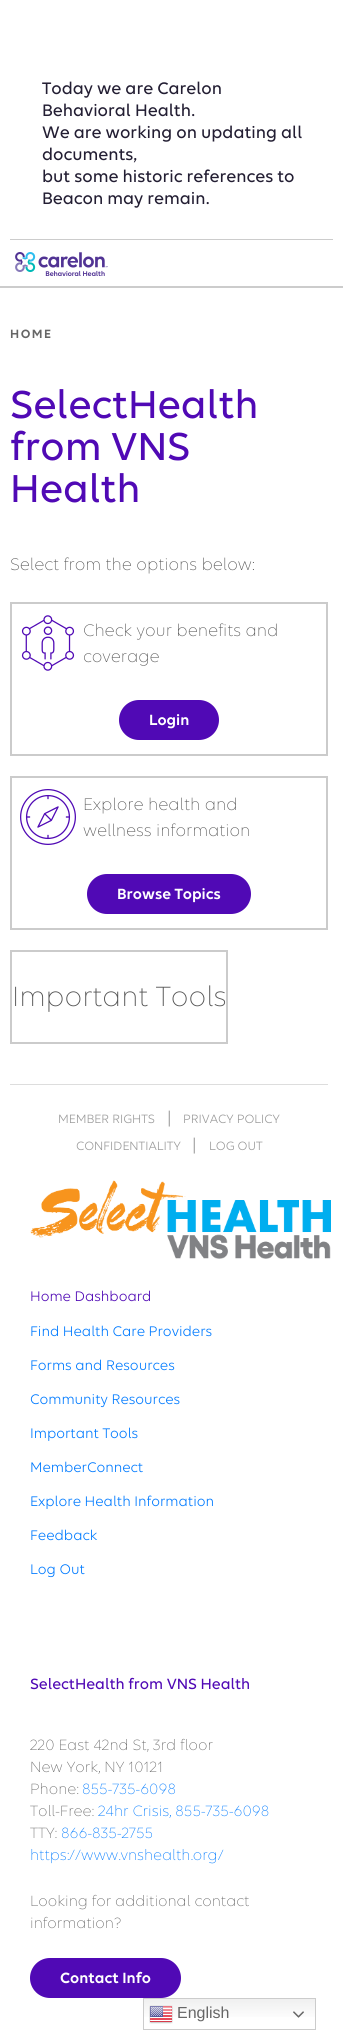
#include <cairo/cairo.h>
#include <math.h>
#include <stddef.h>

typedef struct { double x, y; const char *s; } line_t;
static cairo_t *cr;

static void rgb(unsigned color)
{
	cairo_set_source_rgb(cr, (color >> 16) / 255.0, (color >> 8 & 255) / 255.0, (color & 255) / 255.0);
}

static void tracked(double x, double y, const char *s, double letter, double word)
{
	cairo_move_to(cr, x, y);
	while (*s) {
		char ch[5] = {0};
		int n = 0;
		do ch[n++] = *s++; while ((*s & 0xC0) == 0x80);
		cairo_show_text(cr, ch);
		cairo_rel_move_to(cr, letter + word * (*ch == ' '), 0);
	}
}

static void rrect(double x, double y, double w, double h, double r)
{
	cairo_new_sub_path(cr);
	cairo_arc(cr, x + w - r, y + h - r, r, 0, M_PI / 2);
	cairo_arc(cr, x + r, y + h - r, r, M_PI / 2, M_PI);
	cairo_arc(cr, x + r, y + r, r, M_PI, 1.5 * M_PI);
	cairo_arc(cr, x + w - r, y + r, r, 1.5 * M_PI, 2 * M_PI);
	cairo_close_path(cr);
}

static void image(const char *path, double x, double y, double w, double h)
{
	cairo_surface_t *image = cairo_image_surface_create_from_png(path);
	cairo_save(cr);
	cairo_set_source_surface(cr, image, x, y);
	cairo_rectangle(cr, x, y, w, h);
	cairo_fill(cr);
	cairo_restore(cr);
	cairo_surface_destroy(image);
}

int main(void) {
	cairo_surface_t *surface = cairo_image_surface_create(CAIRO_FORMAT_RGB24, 343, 2030);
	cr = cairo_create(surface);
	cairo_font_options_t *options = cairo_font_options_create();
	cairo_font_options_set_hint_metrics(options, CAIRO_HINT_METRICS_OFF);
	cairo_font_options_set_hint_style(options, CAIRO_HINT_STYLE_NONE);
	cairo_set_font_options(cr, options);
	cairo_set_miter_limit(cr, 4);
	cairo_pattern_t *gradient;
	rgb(0xffffff);
	cairo_paint(cr);
	rgb(0xcccccc);
	cairo_rectangle(cr, 10, 239, 323, 1);
	cairo_fill(cr);
	cairo_rectangle(cr, 0, 286, 343, 2);
	cairo_fill(cr);
	image("img/1.png", 15, 252, 93, 24);
	cairo_rectangle(cr, 11, 603, 316, 152);
	rgb(0xcbcbcb);
	cairo_stroke(cr);
	image("img/2.png", 21, 615, 54, 56);
	rgb(0x5009b5);
	rrect(119, 700, 100, 40, 20);
	cairo_fill(cr);
	cairo_rectangle(cr, 11, 777, 316, 152);
	rgb(0xcbcbcb);
	cairo_stroke(cr);
	image("img/3.png", 20, 789, 56, 56);
	rgb(0x5009b5);
	rrect(87, 874, 164, 40, 20);
	cairo_fill(cr);
	cairo_rectangle(cr, 11, 951, 216, 92);
	rgb(0xcbcbcb);
	cairo_stroke(cr);
	rgb(0xdddddd);
	cairo_rectangle(cr, 10, 1084, 318, 1);
	cairo_fill(cr);
	image("img/4.png", 30, 1180, 301, 79);
	rgb(0x5009b5);
	rrect(30, 1958, 151, 40, 20);
	cairo_fill(cr);
	gradient = cairo_pattern_create_linear(230, 1998, 230, 2030);
	cairo_pattern_add_color_stop_rgba(gradient, 0, 0.937, 0.937, 0.937, 1);
	cairo_pattern_add_color_stop_rgba(gradient, 0.7, 1, 1, 1, 1);
	cairo_set_source(cr, gradient);
	cairo_pattern_destroy(gradient);
	cairo_rectangle(cr, 144, 1999, 171, 18);
	cairo_fill(cr);
	cairo_rectangle(cr, 143.5, 1998.5, 172, 31);
	rgb(0xcccccc);
	cairo_set_line_width(cr, 1);
	cairo_stroke(cr);
	image("img/5.png", 149, 2005, 24, 19);
	image("img/6.png", 293, 2011, 11, 7);
	cairo_select_font_face(cr, "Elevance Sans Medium", CAIRO_FONT_SLANT_NORMAL, CAIRO_FONT_WEIGHT_NORMAL);
	cairo_set_font_size(cr, 18);
	rgb(0x231e33);
	{
		static const line_t items[] = {
			{42, 94, "Today we are Carelon"},
			{42, 116, "Behavioral Health."},
			{42, 138, "We are working on updating all"},
			{42, 160, "documents,"},
			{42, 182, "but some historic references to"},
			{42, 204, "Beacon may remain."},
		};
		for (size_t i = 0; i < sizeof items / sizeof *items; i++) {
			cairo_move_to(cr, items[i].x, items[i].y);
			cairo_show_text(cr, items[i].s);
		}
	}
	cairo_select_font_face(cr, "Elevance Sans SemiBold", CAIRO_FONT_SLANT_NORMAL, CAIRO_FONT_WEIGHT_NORMAL);
	cairo_set_font_size(cr, 13);
	rgb(0x666666);
	tracked(10, 338, "HOME", 1.5, 0);
	cairo_select_font_face(cr, "Elevance Sans Medium", CAIRO_FONT_SLANT_NORMAL, CAIRO_FONT_WEIGHT_NORMAL);
	cairo_set_font_size(cr, 42);
	rgb(0x5009b5);
	{
		static const line_t items[] = {
			{10, 418, "SelectHealth"},
			{10, 460, "from VNS"},
			{10, 502, "Health"},
		};
		for (size_t i = 0; i < sizeof items / sizeof *items; i++) {
			cairo_move_to(cr, items[i].x, items[i].y);
			cairo_show_text(cr, items[i].s);
		}
	}
	cairo_select_font_face(cr, "Elevance Sans Light", CAIRO_FONT_SLANT_NORMAL, CAIRO_FONT_WEIGHT_NORMAL);
	cairo_set_font_size(cr, 18);
	rgb(0x555555);
	{
		static const line_t items[] = {
			{10, 570, "Select from the options below:"},
			{83, 636, "Check your benefits and"},
			{83, 662, "coverage"},
		};
		for (size_t i = 0; i < sizeof items / sizeof *items; i++) {
			cairo_move_to(cr, items[i].x, items[i].y);
			cairo_show_text(cr, items[i].s);
		}
	}
	cairo_select_font_face(cr, "Elevance Sans SemiBold", CAIRO_FONT_SLANT_NORMAL, CAIRO_FONT_WEIGHT_NORMAL);
	cairo_set_font_size(cr, 16);
	rgb(0xffffff);
	cairo_move_to(cr, 149, 725);
	cairo_show_text(cr, "Login");
	cairo_select_font_face(cr, "Elevance Sans Light", CAIRO_FONT_SLANT_NORMAL, CAIRO_FONT_WEIGHT_NORMAL);
	cairo_set_font_size(cr, 18);
	rgb(0x555555);
	cairo_move_to(cr, 83, 810);
	cairo_show_text(cr, "Explore health and");
	cairo_move_to(cr, 83, 836);
	cairo_show_text(cr, "wellness information");
	cairo_select_font_face(cr, "Elevance Sans SemiBold", CAIRO_FONT_SLANT_NORMAL, CAIRO_FONT_WEIGHT_NORMAL);
	cairo_set_font_size(cr, 16);
	rgb(0xffffff);
	cairo_move_to(cr, 117, 899);
	cairo_show_text(cr, "Browse Topics");
	cairo_select_font_face(cr, "Elevance Sans Light", CAIRO_FONT_SLANT_NORMAL, CAIRO_FONT_WEIGHT_NORMAL);
	cairo_set_font_size(cr, 30);
	rgb(0x555555);
	cairo_move_to(cr, 12, 1006);
	cairo_show_text(cr, "Important Tools");
	cairo_select_font_face(cr, "Elevance Sans", CAIRO_FONT_SLANT_NORMAL, CAIRO_FONT_WEIGHT_NORMAL);
	cairo_set_font_size(cr, 13);
	rgb(0x999999);
	cairo_move_to(cr, 58, 1123);
	cairo_show_text(cr, "MEMBER RIGHTS");
	cairo_set_font_size(cr, 18);
	cairo_move_to(cr, 167, 1123);
	cairo_show_text(cr, "|");
	cairo_set_font_size(cr, 13);
	cairo_move_to(cr, 183, 1123);
	cairo_show_text(cr, "PRIVACY POLICY");
	cairo_move_to(cr, 76, 1150);
	cairo_show_text(cr, "CONFIDENTIALITY");
	cairo_set_font_size(cr, 18);
	cairo_move_to(cr, 192, 1150);
	cairo_show_text(cr, "|");
	cairo_set_font_size(cr, 13);
	cairo_move_to(cr, 209, 1150);
	cairo_show_text(cr, "LOG OUT");
	cairo_set_font_size(cr, 15);
	rgb(0x5009b5);
	cairo_move_to(cr, 30, 1301);
	cairo_show_text(cr, "Home Dashboard");
	rgb(0x007aff);
	{
		static const line_t items[] = {
			{30, 1336, "Find Health Care Providers"},
			{30, 1370, "Forms and Resources"},
			{30, 1404, "Community Resources"},
			{30, 1438, "Important Tools"},
			{30, 1472, "MemberConnect"},
			{30, 1506, "Explore Health Information"},
			{30, 1540, "Feedback"},
			{30, 1574, "Log Out"},
		};
		for (size_t i = 0; i < sizeof items / sizeof *items; i++) {
			cairo_move_to(cr, items[i].x, items[i].y);
			cairo_show_text(cr, items[i].s);
		}
	}
	cairo_select_font_face(cr, "Elevance Sans Medium", CAIRO_FONT_SLANT_NORMAL, CAIRO_FONT_WEIGHT_NORMAL);
	cairo_set_font_size(cr, 16);
	rgb(0x5009b5);
	cairo_move_to(cr, 30, 1689);
	cairo_show_text(cr, "SelectHealth from VNS Health");
	cairo_select_font_face(cr, "Elevance Sans Light", CAIRO_FONT_SLANT_NORMAL, CAIRO_FONT_WEIGHT_NORMAL);
	rgb(0x666666);
	{
		static const line_t items[] = {
			{30, 1750, "220 East 42nd St, 3rd floor"},
			{30, 1772, "New York, NY 10121"},
			{30, 1794, "Phone:"},
		};
		for (size_t i = 0; i < sizeof items / sizeof *items; i++) {
			cairo_move_to(cr, items[i].x, items[i].y);
			cairo_show_text(cr, items[i].s);
		}
	}
	rgb(0x007aff);
	cairo_move_to(cr, 82, 1794);
	cairo_show_text(cr, "855-735-6098");
	rgb(0x666666);
	cairo_move_to(cr, 30, 1816);
	cairo_show_text(cr, "Toll-Free:");
	rgb(0x007aff);
	cairo_move_to(cr, 98, 1816);
	cairo_show_text(cr, "24hr Crisis, 855-735-6098");
	rgb(0x666666);
	cairo_move_to(cr, 30, 1838);
	cairo_show_text(cr, "TTY:");
	rgb(0x007aff);
	cairo_move_to(cr, 61, 1838);
	cairo_show_text(cr, "866-835-2755");
	cairo_move_to(cr, 30, 1860);
	cairo_show_text(cr, "https://www.vnshealth.org/");
	rgb(0x666666);
	cairo_move_to(cr, 30, 1906);
	cairo_show_text(cr, "Looking for additional contact");
	cairo_move_to(cr, 30, 1928);
	cairo_show_text(cr, "information?");
	cairo_select_font_face(cr, "Elevance Sans SemiBold", CAIRO_FONT_SLANT_NORMAL, CAIRO_FONT_WEIGHT_NORMAL);
	rgb(0xffffff);
	cairo_move_to(cr, 60, 1983);
	cairo_show_text(cr, "Contact Info");
	cairo_select_font_face(cr, "Liberation Sans", CAIRO_FONT_SLANT_NORMAL, CAIRO_FONT_WEIGHT_NORMAL);
	rgb(0x666666);
	cairo_move_to(cr, 177, 2018);
	cairo_show_text(cr, "English");
	cairo_surface_write_to_png(surface, "page.png");
	cairo_font_options_destroy(options);
	cairo_destroy(cr);
	cairo_surface_destroy(surface);
	return 0;
}
